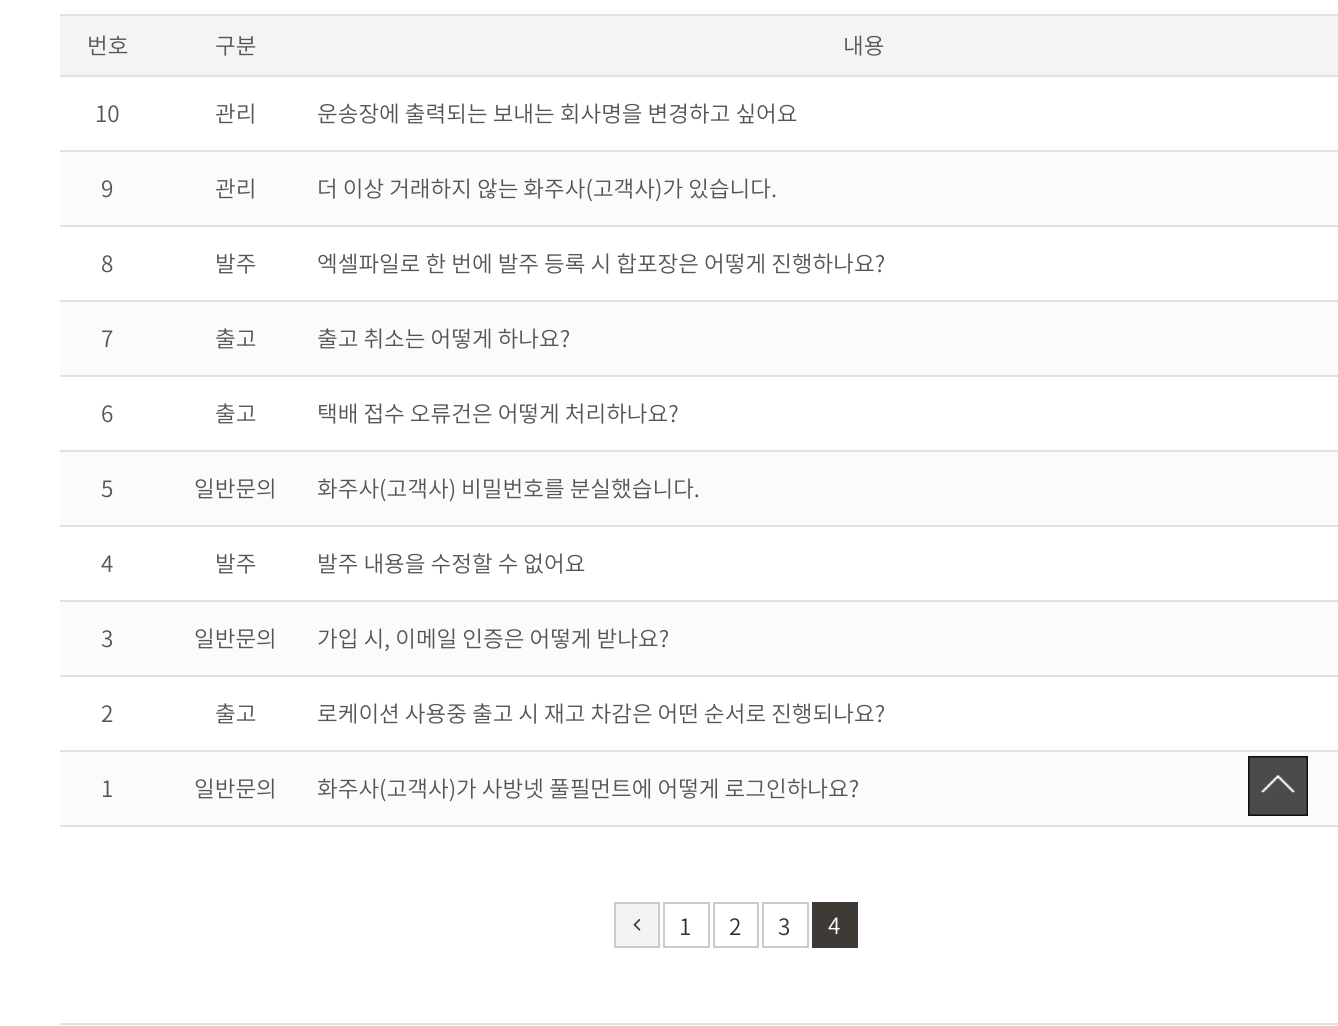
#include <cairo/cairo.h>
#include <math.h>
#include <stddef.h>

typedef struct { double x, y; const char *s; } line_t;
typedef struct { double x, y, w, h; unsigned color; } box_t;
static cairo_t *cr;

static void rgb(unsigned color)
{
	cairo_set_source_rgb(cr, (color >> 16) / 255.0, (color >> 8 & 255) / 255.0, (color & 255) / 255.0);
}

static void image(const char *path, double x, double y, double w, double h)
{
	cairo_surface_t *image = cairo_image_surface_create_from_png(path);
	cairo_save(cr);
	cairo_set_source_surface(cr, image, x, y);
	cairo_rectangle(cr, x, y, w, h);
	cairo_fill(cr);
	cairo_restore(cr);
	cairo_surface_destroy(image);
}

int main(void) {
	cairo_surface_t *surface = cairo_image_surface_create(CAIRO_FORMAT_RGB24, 1338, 1026);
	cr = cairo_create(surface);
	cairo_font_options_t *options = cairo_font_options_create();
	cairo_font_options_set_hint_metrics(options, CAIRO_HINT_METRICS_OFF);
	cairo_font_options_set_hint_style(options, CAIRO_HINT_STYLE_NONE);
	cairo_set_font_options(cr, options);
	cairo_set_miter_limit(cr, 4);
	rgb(0xffffff);
	cairo_paint(cr);
	{
		static const box_t items[] = {
			{60, 16, 1278, 59, 0xf4f4f4},
			{60, 14, 1278, 2, 0xe1e1e1},
			{60, 75, 1278, 2, 0xe1e1e1},
			{60, 150, 1278, 2, 0xe1e1e1},
			{60, 152, 1278, 73, 0xfbfbfb},
			{60, 225, 1278, 2, 0xe1e1e1},
			{60, 300, 1278, 2, 0xe1e1e1},
			{60, 302, 1278, 73, 0xfbfbfb},
			{60, 375, 1278, 2, 0xe1e1e1},
			{60, 450, 1278, 2, 0xe1e1e1},
			{60, 452, 1278, 73, 0xfbfbfb},
			{60, 525, 1278, 2, 0xe1e1e1},
			{60, 600, 1278, 2, 0xe1e1e1},
			{60, 602, 1278, 73, 0xfbfbfb},
			{60, 675, 1278, 2, 0xe1e1e1},
			{60, 750, 1278, 2, 0xe1e1e1},
			{60, 752, 1278, 73, 0xfbfbfb},
			{60, 825, 1278, 2, 0xe1e1e1},
		};
		for (size_t i = 0; i < sizeof items / sizeof *items; i++) {
			rgb(items[i].color);
			cairo_rectangle(cr, items[i].x, items[i].y, items[i].w, items[i].h);
			cairo_fill(cr);
		}
	}
	image("img/1.png", 1248, 756, 60, 60);
	rgb(0xf3f3f3);
	cairo_rectangle(cr, 615, 903, 44, 44);
	cairo_fill_preserve(cr);
	rgb(0xcbcbcb);
	cairo_stroke(cr);
	image("img/2.png", 633, 919, 8, 12);
	cairo_rectangle(cr, 664, 903, 45, 44);
	cairo_stroke(cr);
	cairo_rectangle(cr, 714, 903, 44, 44);
	cairo_stroke(cr);
	cairo_rectangle(cr, 763, 903, 45, 44);
	cairo_stroke(cr);
	{
		static const box_t items[] = {
			{812, 902, 46, 46, 0x3e3a35},
			{60, 1023, 1278, 2, 0xe1e1e1},
			{60, 1025, 1278, 1, 0xfcfcfc},
		};
		for (size_t i = 0; i < sizeof items / sizeof *items; i++) {
			rgb(items[i].color);
			cairo_rectangle(cr, items[i].x, items[i].y, items[i].w, items[i].h);
			cairo_fill(cr);
		}
	}
	cairo_select_font_face(cr, "Noto Sans KR Light", CAIRO_FONT_SLANT_NORMAL, CAIRO_FONT_WEIGHT_NORMAL);
	cairo_set_font_size(cr, 22.5);
	rgb(0x555555);
	{
		static const line_t items[] = {
			{87, 54, "번호"},
			{215, 54, "구분"},
			{843, 54, "내용"},
			{95, 122, "10"},
			{215, 122, "관리"},
			{317, 122, "운송장에 출력되는 보내는 회사명을 변경하고 싶어요"},
			{101, 197, "9"},
			{215, 197, "관리"},
			{317, 197, "더 이상 거래하지 않는 화주사(고객사)가 있습니다."},
			{101, 272, "8"},
			{215, 272, "발주"},
			{317, 272, "엑셀파일로 한 번에 발주 등록 시 합포장은 어떻게 진행하나요?"},
			{101, 347, "7"},
			{215, 347, "출고"},
			{317, 347, "출고 취소는 어떻게 하나요?"},
			{101, 422, "6"},
			{215, 422, "출고"},
			{317, 422, "택배 접수 오류건은 어떻게 처리하나요?"},
			{101, 497, "5"},
			{194, 497, "일반문의"},
			{317, 497, "화주사(고객사) 비밀번호를 분실했습니다."},
			{101, 572, "4"},
			{215, 572, "발주"},
			{317, 572, "발주 내용을 수정할 수 없어요"},
			{101, 647, "3"},
			{194, 647, "일반문의"},
			{317, 647, "가입 시, 이메일 인증은 어떻게 받나요?"},
			{101, 722, "2"},
			{215, 722, "출고"},
			{317, 722, "로케이션 사용중 출고 시 재고 차감은 어떤 순서로 진행되나요?"},
			{101, 797, "1"},
			{194, 797, "일반문의"},
			{317, 797, "화주사(고객사)가 사방넷 풀필먼트에 어떻게 로그인하나요?"},
		};
		for (size_t i = 0; i < sizeof items / sizeof *items; i++) {
			cairo_move_to(cr, items[i].x, items[i].y);
			cairo_show_text(cr, items[i].s);
		}
	}
	rgb(0x333333);
	{
		static const line_t items[] = {
			{679, 935, "1"},
			{729, 935, "2"},
			{778, 935, "3"},
		};
		for (size_t i = 0; i < sizeof items / sizeof *items; i++) {
			cairo_move_to(cr, items[i].x, items[i].y);
			cairo_show_text(cr, items[i].s);
		}
	}
	rgb(0xffffff);
	cairo_move_to(cr, 828, 934);
	cairo_show_text(cr, "4");
	cairo_surface_write_to_png(surface, "page.png");
	cairo_font_options_destroy(options);
	cairo_destroy(cr);
	cairo_surface_destroy(surface);
	return 0;
}
